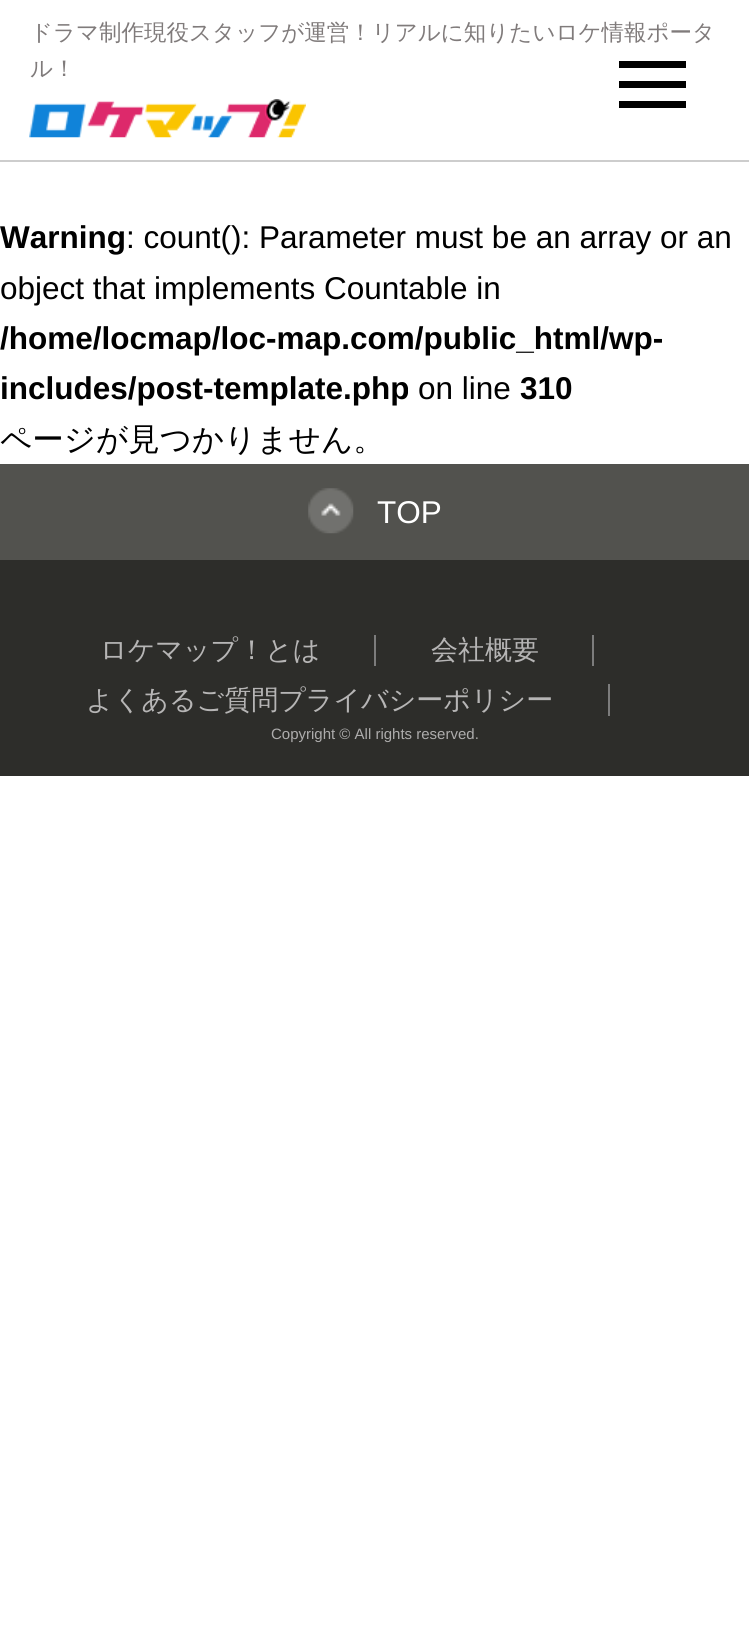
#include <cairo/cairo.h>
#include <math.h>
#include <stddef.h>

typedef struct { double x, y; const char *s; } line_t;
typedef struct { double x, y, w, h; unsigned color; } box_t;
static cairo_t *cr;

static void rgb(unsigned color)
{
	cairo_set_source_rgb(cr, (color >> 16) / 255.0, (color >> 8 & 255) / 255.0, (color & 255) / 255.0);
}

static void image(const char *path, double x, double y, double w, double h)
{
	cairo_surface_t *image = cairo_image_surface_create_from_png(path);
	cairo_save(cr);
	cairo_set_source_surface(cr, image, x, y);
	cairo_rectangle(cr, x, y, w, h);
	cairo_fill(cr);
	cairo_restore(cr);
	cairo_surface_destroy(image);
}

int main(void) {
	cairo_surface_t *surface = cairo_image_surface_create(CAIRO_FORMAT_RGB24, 749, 1647);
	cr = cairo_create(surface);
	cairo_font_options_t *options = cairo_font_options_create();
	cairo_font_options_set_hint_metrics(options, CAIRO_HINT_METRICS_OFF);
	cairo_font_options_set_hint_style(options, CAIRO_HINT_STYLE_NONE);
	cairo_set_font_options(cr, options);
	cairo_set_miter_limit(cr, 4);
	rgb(0xffffff);
	cairo_paint(cr);
	{
		static const box_t items[] = {
			{0, 160, 749, 2, 0xcdcdcd},
			{619, 61, 67, 7, 0x000000},
			{619, 81, 67, 7, 0x000000},
			{619, 101, 67, 7, 0x000000},
		};
		for (size_t i = 0; i < sizeof items / sizeof *items; i++) {
			rgb(items[i].color);
			cairo_rectangle(cr, items[i].x, items[i].y, items[i].w, items[i].h);
			cairo_fill(cr);
		}
	}
	image("img/1.png", 29, 99, 277, 39);
	rgb(0x52524e);
	cairo_rectangle(cr, 0, 464, 749, 96);
	cairo_fill(cr);
	image("img/2.png", 308, 488, 46, 46);
	{
		static const box_t items[] = {
			{0, 560, 749, 216, 0x2d2d2a},
			{374, 635, 2, 31, 0x7c7c7c},
			{592, 635, 2, 31, 0x7c7c7c},
			{608, 684, 2, 32, 0x7c7c7c},
		};
		for (size_t i = 0; i < sizeof items / sizeof *items; i++) {
			rgb(items[i].color);
			cairo_rectangle(cr, items[i].x, items[i].y, items[i].w, items[i].h);
			cairo_fill(cr);
		}
	}
	cairo_select_font_face(cr, "WenQuanYi Zen Hei Medium", CAIRO_FONT_SLANT_NORMAL, CAIRO_FONT_WEIGHT_NORMAL);
	cairo_set_font_size(cr, 22.5);
	rgb(0x807b7b);
	cairo_move_to(cr, 30, 40);
	cairo_show_text(cr, "ドラマ制作現役スタッフが運営！リアルに知りたいロケ情報ポータ");
	cairo_move_to(cr, 30, 76);
	cairo_show_text(cr, "ル！");
	cairo_select_font_face(cr, "Liberation Sans", CAIRO_FONT_SLANT_NORMAL, CAIRO_FONT_WEIGHT_BOLD);
	cairo_set_font_size(cr, 31.5);
	rgb(0x000000);
	cairo_move_to(cr, 0, 248);
	cairo_show_text(cr, "Warning");
	cairo_select_font_face(cr, "Liberation Sans", CAIRO_FONT_SLANT_NORMAL, CAIRO_FONT_WEIGHT_NORMAL);
	cairo_move_to(cr, 126, 248);
	cairo_show_text(cr, ": count(): Parameter must be an array or an");
	cairo_move_to(cr, 0, 299);
	cairo_show_text(cr, "object that implements Countable in");
	cairo_select_font_face(cr, "Liberation Sans", CAIRO_FONT_SLANT_NORMAL, CAIRO_FONT_WEIGHT_BOLD);
	cairo_move_to(cr, 0, 349);
	cairo_show_text(cr, "/home/locmap/loc-map.com/public_html/wp-");
	cairo_move_to(cr, 0, 399);
	cairo_show_text(cr, "includes/post-template.php");
	cairo_select_font_face(cr, "Liberation Sans", CAIRO_FONT_SLANT_NORMAL, CAIRO_FONT_WEIGHT_NORMAL);
	cairo_move_to(cr, 418, 399);
	cairo_show_text(cr, "on line");
	cairo_select_font_face(cr, "Liberation Sans", CAIRO_FONT_SLANT_NORMAL, CAIRO_FONT_WEIGHT_BOLD);
	cairo_move_to(cr, 520, 399);
	cairo_show_text(cr, "310");
	cairo_select_font_face(cr, "WenQuanYi Zen Hei Medium", CAIRO_FONT_SLANT_NORMAL, CAIRO_FONT_WEIGHT_NORMAL);
	cairo_move_to(cr, 0, 450);
	cairo_show_text(cr, "ページが見つかりません。");
	cairo_select_font_face(cr, "Liberation Sans", CAIRO_FONT_SLANT_NORMAL, CAIRO_FONT_WEIGHT_NORMAL);
	rgb(0xffffff);
	cairo_move_to(cr, 377, 523);
	cairo_show_text(cr, "TOP");
	cairo_select_font_face(cr, "WenQuanYi Zen Hei Medium", CAIRO_FONT_SLANT_NORMAL, CAIRO_FONT_WEIGHT_NORMAL);
	cairo_set_font_size(cr, 27);
	rgb(0xb6b5b5);
	{
		static const line_t items[] = {
			{100, 659, "ロケマップ！とは"},
			{431, 659, "会社概要"},
			{86, 709, "よくあるご質問プライバシーポリシー"},
		};
		for (size_t i = 0; i < sizeof items / sizeof *items; i++) {
			cairo_move_to(cr, items[i].x, items[i].y);
			cairo_show_text(cr, items[i].s);
		}
	}
	cairo_select_font_face(cr, "Liberation Sans", CAIRO_FONT_SLANT_NORMAL, CAIRO_FONT_WEIGHT_NORMAL);
	cairo_set_font_size(cr, 15);
	rgb(0xadacac);
	cairo_move_to(cr, 271, 739);
	cairo_show_text(cr, "Copyright © All rights reserved.");
	cairo_surface_write_to_png(surface, "page.png");
	cairo_font_options_destroy(options);
	cairo_destroy(cr);
	cairo_surface_destroy(surface);
	return 0;
}
